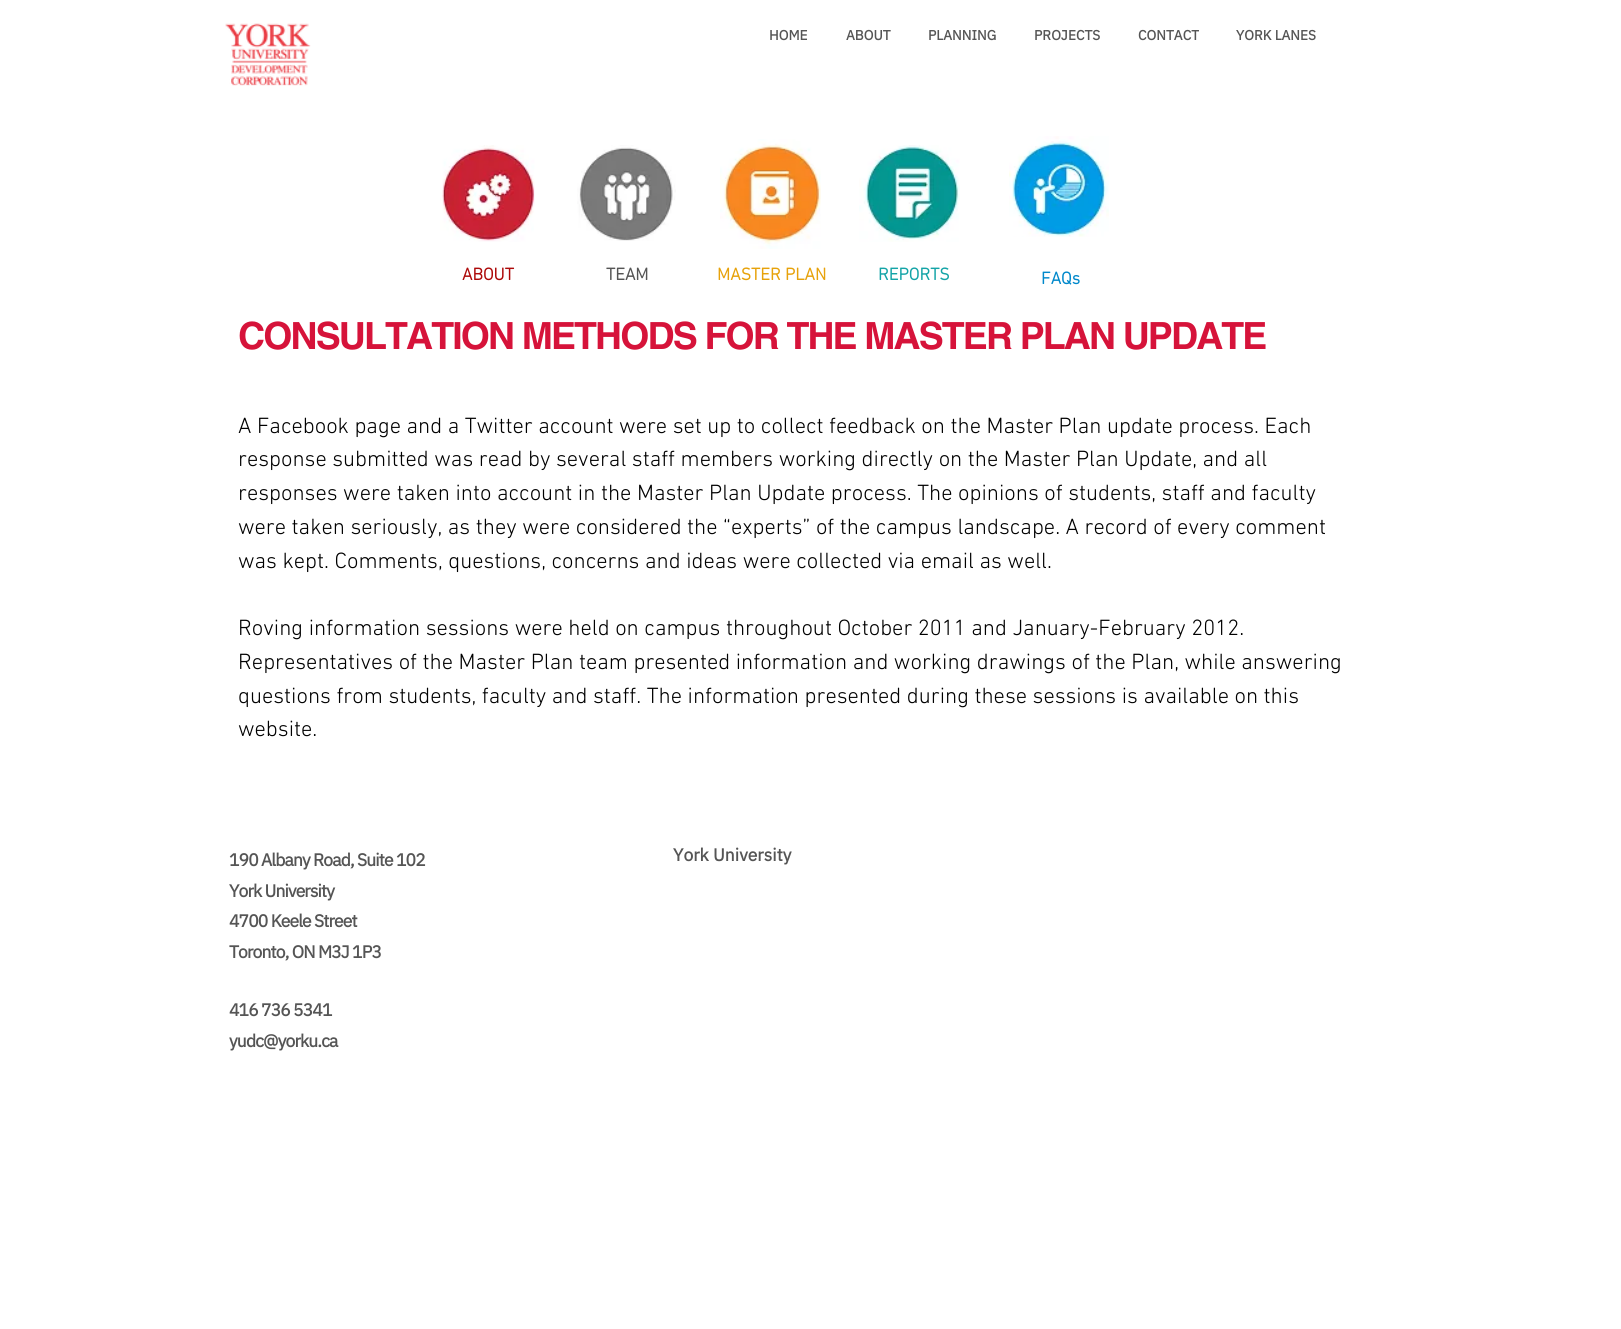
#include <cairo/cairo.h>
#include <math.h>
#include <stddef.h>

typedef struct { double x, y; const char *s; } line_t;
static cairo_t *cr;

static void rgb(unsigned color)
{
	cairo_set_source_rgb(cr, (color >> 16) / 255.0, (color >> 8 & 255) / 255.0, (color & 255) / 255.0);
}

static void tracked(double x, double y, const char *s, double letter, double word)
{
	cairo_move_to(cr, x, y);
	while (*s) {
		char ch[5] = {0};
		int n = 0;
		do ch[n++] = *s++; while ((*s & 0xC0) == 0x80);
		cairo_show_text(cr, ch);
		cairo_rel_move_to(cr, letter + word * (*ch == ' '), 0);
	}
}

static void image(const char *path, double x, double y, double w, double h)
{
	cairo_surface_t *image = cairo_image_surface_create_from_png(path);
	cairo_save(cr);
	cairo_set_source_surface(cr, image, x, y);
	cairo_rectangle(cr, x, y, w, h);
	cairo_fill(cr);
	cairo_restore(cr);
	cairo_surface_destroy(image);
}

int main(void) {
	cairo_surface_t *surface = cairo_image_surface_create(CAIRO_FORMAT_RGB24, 1621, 1329);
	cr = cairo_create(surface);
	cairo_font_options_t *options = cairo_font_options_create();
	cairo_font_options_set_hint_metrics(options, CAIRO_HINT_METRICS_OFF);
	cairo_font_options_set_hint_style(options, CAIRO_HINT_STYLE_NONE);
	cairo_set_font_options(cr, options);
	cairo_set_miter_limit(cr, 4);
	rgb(0xffffff);
	cairo_paint(cr);
	image("img/1.png", 225, 23, 86, 63);
	image("img/2.png", 440, 145, 95, 97);
	image("img/3.png", 577, 145, 99, 96);
	image("img/4.png", 720, 139, 101, 110);
	image("img/5.png", 859, 145, 101, 97);
	image("img/6.png", 1009, 136, 100, 101);
	cairo_select_font_face(cr, "IBM Plex Sans", CAIRO_FONT_SLANT_NORMAL, CAIRO_FONT_WEIGHT_BOLD);
	cairo_set_font_size(cr, 13.75);
	rgb(0x555555);
	{
		static const line_t items[] = {
			{769, 40, "HOME"},
			{846, 40, "ABOUT"},
			{928, 40, "PLANNING"},
			{1034, 40, "PROJECTS"},
			{1138, 40, "CONTACT"},
			{1236, 40, "YORK LANES"},
		};
		for (size_t i = 0; i < sizeof items / sizeof *items; i++) {
			cairo_move_to(cr, items[i].x, items[i].y);
			cairo_show_text(cr, items[i].s);
		}
	}
	cairo_select_font_face(cr, "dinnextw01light", CAIRO_FONT_SLANT_NORMAL, CAIRO_FONT_WEIGHT_BOLD);
	cairo_set_font_size(cr, 17.5);
	rgb(0xad0a0a);
	cairo_move_to(cr, 462, 280);
	cairo_show_text(cr, "ABOUT");
	rgb(0x555555);
	cairo_move_to(cr, 606, 280);
	cairo_show_text(cr, "TEAM");
	rgb(0xe7a20b);
	cairo_move_to(cr, 717, 280);
	cairo_show_text(cr, "MASTER PLAN");
	rgb(0x14a4a7);
	cairo_move_to(cr, 878, 280);
	cairo_show_text(cr, "REPORTS");
	rgb(0x0088cb);
	cairo_move_to(cr, 1041, 284);
	cairo_show_text(cr, "FAQs");
	cairo_select_font_face(cr, "helvetica", CAIRO_FONT_SLANT_NORMAL, CAIRO_FONT_WEIGHT_BOLD);
	cairo_set_font_size(cr, 37.5);
	rgb(0xd6133a);
	tracked(238, 349, "CONSULTATION METHODS FOR THE MASTER PLAN UPDATE", -1.9, 0);
	cairo_select_font_face(cr, "dinnextw01light Light", CAIRO_FONT_SLANT_NORMAL, CAIRO_FONT_WEIGHT_NORMAL);
	cairo_set_font_size(cr, 22.5);
	rgb(0x000000);
	{
		static const line_t items[] = {
			{238, 433, "A Facebook page and a Twitter account were set up to collect feedback on the Master Plan update process. Each"},
			{238, 466, "response submitted was read by several staff members working directly on the Master Plan Update, and all"},
			{238, 500, "responses were taken into account in the Master Plan Update process. The opinions of students, staff and faculty"},
			{238, 534, "were taken seriously, as they were considered the “experts” of the campus landscape. A record of every comment"},
			{238, 568, "was kept. Comments, questions, concerns and ideas were collected via email as well."},
			{238, 635, "Roving information sessions were held on campus throughout October 2011 and January-February 2012."},
			{238, 669, "Representatives of the Master Plan team presented information and working drawings of the Plan, while answering"},
			{238, 703, "questions from students, faculty and staff. The information presented during these sessions is available on this"},
			{238, 736, "website."},
		};
		for (size_t i = 0; i < sizeof items / sizeof *items; i++) {
			cairo_move_to(cr, items[i].x, items[i].y);
			cairo_show_text(cr, items[i].s);
		}
	}
	cairo_select_font_face(cr, "IBM Plex Sans", CAIRO_FONT_SLANT_NORMAL, CAIRO_FONT_WEIGHT_BOLD);
	cairo_set_font_size(cr, 17.5);
	rgb(0x555555);
	{
		static const line_t items[] = {
			{229, 866, "190 Albany Road, Suite 102"},
			{229, 897, "York University"},
			{229, 927, "4700 Keele Street"},
			{229, 958, "Toronto, ON M3J 1P3"},
			{229, 1016, "416 736 5341"},
			{229, 1047, "yudc@yorku.ca"},
		};
		for (size_t i = 0; i < sizeof items / sizeof *items; i++) {
			tracked(items[i].x, items[i].y, items[i].s, -0.9, 0);
		}
	}
	cairo_move_to(cr, 673, 861);
	cairo_show_text(cr, "York University");
	cairo_surface_write_to_png(surface, "page.png");
	cairo_font_options_destroy(options);
	cairo_destroy(cr);
	cairo_surface_destroy(surface);
	return 0;
}
